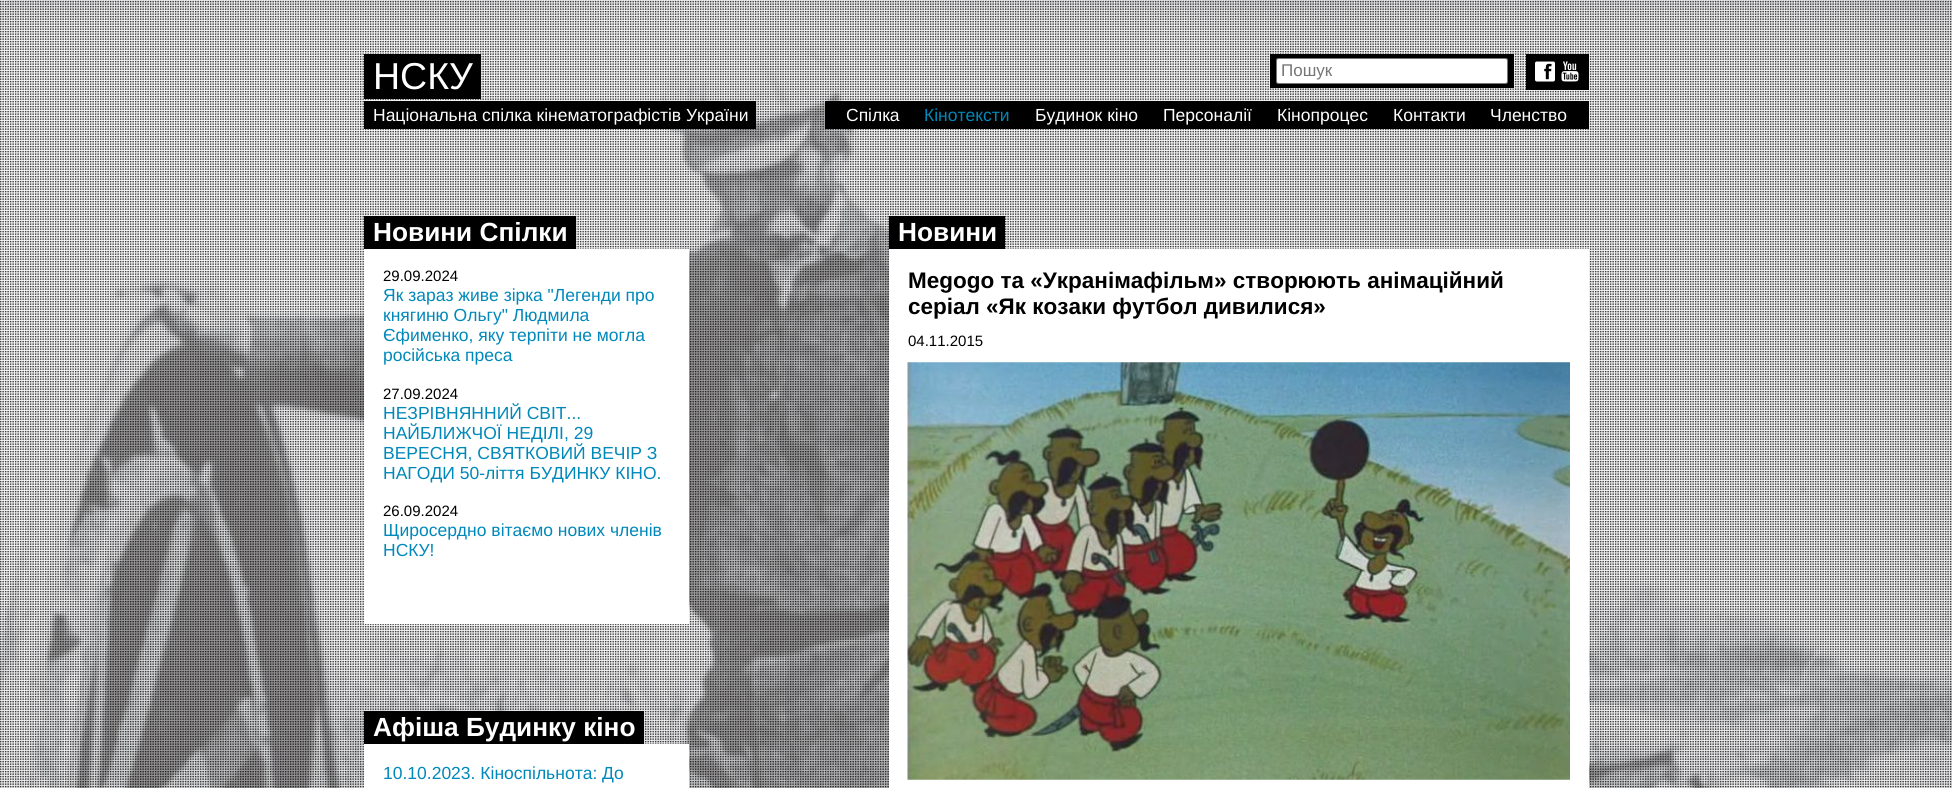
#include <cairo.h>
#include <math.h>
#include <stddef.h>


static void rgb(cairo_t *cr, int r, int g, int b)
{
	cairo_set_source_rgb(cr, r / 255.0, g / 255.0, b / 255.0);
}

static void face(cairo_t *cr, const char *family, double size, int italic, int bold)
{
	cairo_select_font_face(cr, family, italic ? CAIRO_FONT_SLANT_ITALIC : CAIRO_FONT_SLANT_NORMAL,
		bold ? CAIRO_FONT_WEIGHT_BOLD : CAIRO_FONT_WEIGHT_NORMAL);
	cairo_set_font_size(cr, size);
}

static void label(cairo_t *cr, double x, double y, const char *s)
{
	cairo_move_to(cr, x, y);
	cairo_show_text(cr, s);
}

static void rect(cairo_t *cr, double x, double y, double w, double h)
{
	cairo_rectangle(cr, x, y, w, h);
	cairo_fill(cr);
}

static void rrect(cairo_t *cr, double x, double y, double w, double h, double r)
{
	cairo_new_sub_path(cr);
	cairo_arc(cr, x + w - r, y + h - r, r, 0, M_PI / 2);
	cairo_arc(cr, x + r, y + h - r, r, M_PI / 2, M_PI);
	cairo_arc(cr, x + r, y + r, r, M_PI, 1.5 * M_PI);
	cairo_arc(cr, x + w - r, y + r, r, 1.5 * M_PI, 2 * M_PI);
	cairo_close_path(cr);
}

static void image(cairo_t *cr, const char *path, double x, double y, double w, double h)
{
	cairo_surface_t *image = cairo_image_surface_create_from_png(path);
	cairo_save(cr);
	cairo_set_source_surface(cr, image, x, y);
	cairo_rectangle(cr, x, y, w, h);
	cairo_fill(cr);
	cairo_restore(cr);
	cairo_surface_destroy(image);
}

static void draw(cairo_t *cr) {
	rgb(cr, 255, 255, 255);
	cairo_paint(cr);
	image(cr, "image0.png", 0, 0, 1952, 788);
	image(cr, "image1.png", 0, 0, 1952, 788);
	rgb(cr, 0, 0, 0);
	rect(cr, 364, 54, 117, 45);
	face(cr, "Liberation Sans", 37.5, 0, 0);
	rgb(cr, 255, 255, 255);
	label(cr, 373, 89, "НСКУ");
	rgb(cr, 0, 0, 0);
	rect(cr, 1270, 54, 244, 34);
	rgb(cr, 255, 255, 255);
	rrect(cr, 1276.5, 58.5, 231, 25, 2);
	cairo_fill_preserve(cr);
	rgb(cr, 118, 118, 118);
	cairo_set_line_width(cr, 1);
	cairo_stroke(cr);
	face(cr, "Liberation Sans", 17, 0, 0);
	rgb(cr, 117, 117, 117);
	label(cr, 1281, 76, "Пошук");
	rgb(cr, 0, 0, 0);
	rect(cr, 1526, 54, 63, 36);
	image(cr, "image2.png", 1535, 61, 20, 21);
	image(cr, "image3.png", 1561, 61, 18, 21);
	rect(cr, 364, 101, 392, 28);
	face(cr, "Liberation Sans", 17.5, 0, 0);
	rgb(cr, 255, 255, 255);
	label(cr, 373, 121, "Національна спілка кінематографістів України");
	rgb(cr, 0, 0, 0);
	rect(cr, 825, 101, 764, 28);
	rgb(cr, 255, 255, 255);
	label(cr, 846, 121, "Спілка");
	rgb(cr, 0, 136, 186);
	label(cr, 924, 121, "Кінотексти");
	rgb(cr, 255, 255, 255);
	label(cr, 1035, 121, "Будинок кіно");
	label(cr, 1163, 121, "Персоналії");
	label(cr, 1277, 121, "Кінопроцес");
	label(cr, 1393, 121, "Контакти");
	label(cr, 1490, 121, "Членство");
	rgb(cr, 0, 0, 0);
	rect(cr, 364, 216, 212, 33);
	face(cr, "Liberation Sans", 26.25, 0, 1);
	rgb(cr, 255, 255, 255);
	label(cr, 373, 241, "Новини Спілки");
	rect(cr, 364, 249, 325, 375);
	face(cr, "Liberation Sans", 15, 0, 0);
	rgb(cr, 0, 0, 0);
	label(cr, 383, 281, "29.09.2024");
	face(cr, "Liberation Sans", 17.5, 0, 0);
	rgb(cr, 0, 136, 186);
	label(cr, 383, 301, "Як зараз живе зірка \"Легенди про");
	label(cr, 383, 321, "княгиню Ольгу\" Людмила");
	label(cr, 383, 341, "Єфименко, яку терпіти не могла");
	label(cr, 383, 361, "російська преса");
	face(cr, "Liberation Sans", 15, 0, 0);
	rgb(cr, 0, 0, 0);
	label(cr, 383, 399, "27.09.2024");
	face(cr, "Liberation Sans", 17.5, 0, 0);
	rgb(cr, 0, 136, 186);
	label(cr, 383, 419, "НЕЗРІВНЯННИЙ СВІТ...");
	label(cr, 383, 439, "НАЙБЛИЖЧОЇ НЕДІЛІ, 29");
	label(cr, 383, 459, "ВЕРЕСНЯ, СВЯТКОВИЙ ВЕЧІР З");
	label(cr, 383, 479, "НАГОДИ 50-ліття БУДИНКУ КІНО.");
	face(cr, "Liberation Sans", 15, 0, 0);
	rgb(cr, 0, 0, 0);
	label(cr, 383, 516, "26.09.2024");
	face(cr, "Liberation Sans", 17.5, 0, 0);
	rgb(cr, 0, 136, 186);
	label(cr, 383, 536, "Щиросердно вітаємо нових членів");
	label(cr, 383, 556, "НСКУ!");
	rgb(cr, 0, 0, 0);
	rect(cr, 889, 216, 116, 33);
	face(cr, "Liberation Sans", 26.25, 0, 1);
	rgb(cr, 255, 255, 255);
	label(cr, 898, 241, "Новини");
	rect(cr, 889, 249, 700, 539);
	face(cr, "Liberation Sans", 22.5, 0, 1);
	rgb(cr, 0, 0, 0);
	label(cr, 908, 288, "Megogo та «Укранімафільм» створюють анімаційний");
	label(cr, 908, 314, "серіал «Як козаки футбол дивилися»");
	face(cr, "Liberation Sans", 15, 0, 0);
	label(cr, 908, 346, "04.11.2015");
	image(cr, "image4.png", 907, 362, 663, 418);
	rect(cr, 364, 711, 280, 33);
	face(cr, "Liberation Sans", 26.25, 0, 1);
	rgb(cr, 255, 255, 255);
	label(cr, 373, 736, "Афіша Будинку кіно");
	rect(cr, 364, 744, 325, 44);
	face(cr, "Liberation Sans", 17.5, 0, 0);
	rgb(cr, 0, 136, 186);
	label(cr, 383, 779, "10.10.2023. Кіноспільнота: До");
}

int main(void) {
	cairo_surface_t *surface = cairo_image_surface_create(CAIRO_FORMAT_RGB24, 1952, 788);
	cairo_t *cr = cairo_create(surface);
	cairo_font_options_t *options = cairo_font_options_create();
	cairo_font_options_set_hint_metrics(options, CAIRO_HINT_METRICS_OFF);
	cairo_font_options_set_hint_style(options, CAIRO_HINT_STYLE_NONE);
	cairo_set_font_options(cr, options);
	cairo_set_miter_limit(cr, 4);
	draw(cr);
	cairo_surface_write_to_png(surface, "render.png");
	cairo_font_options_destroy(options);
	cairo_destroy(cr);
	cairo_surface_destroy(surface);
	return 0;
}
